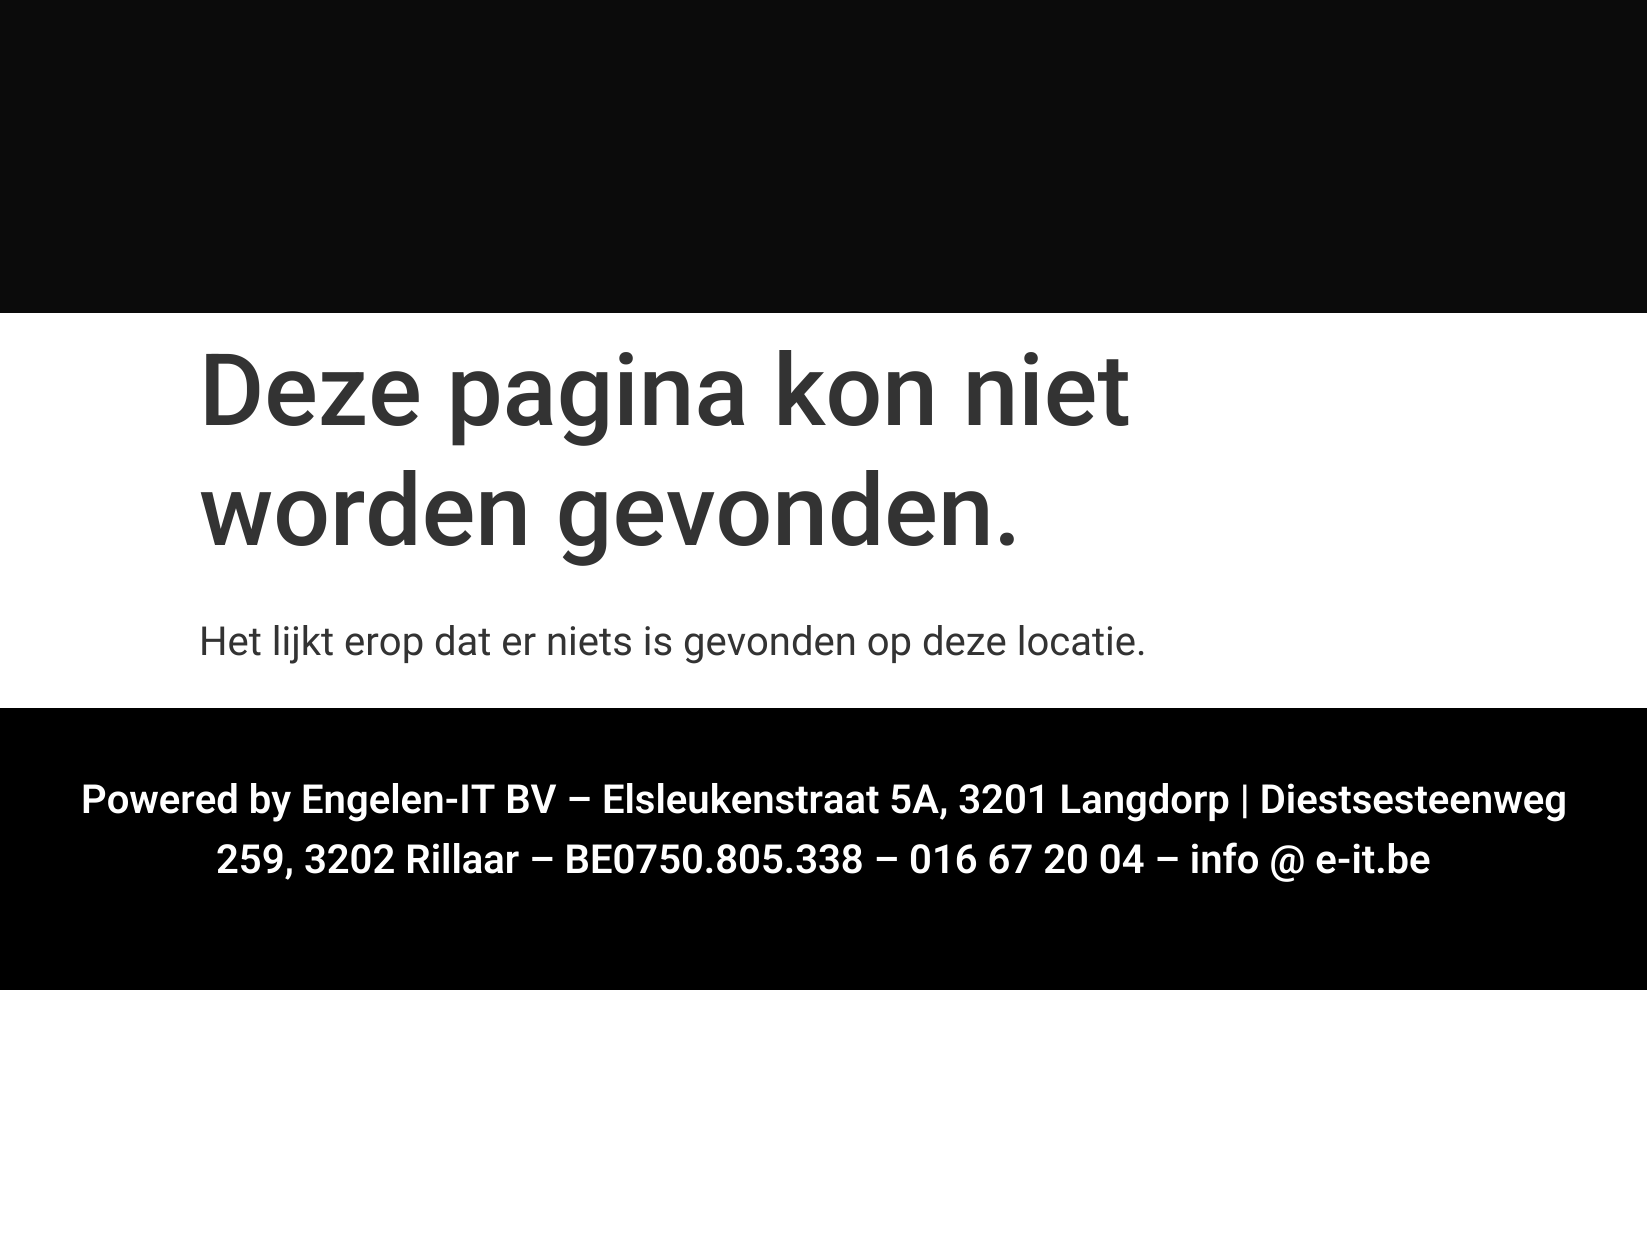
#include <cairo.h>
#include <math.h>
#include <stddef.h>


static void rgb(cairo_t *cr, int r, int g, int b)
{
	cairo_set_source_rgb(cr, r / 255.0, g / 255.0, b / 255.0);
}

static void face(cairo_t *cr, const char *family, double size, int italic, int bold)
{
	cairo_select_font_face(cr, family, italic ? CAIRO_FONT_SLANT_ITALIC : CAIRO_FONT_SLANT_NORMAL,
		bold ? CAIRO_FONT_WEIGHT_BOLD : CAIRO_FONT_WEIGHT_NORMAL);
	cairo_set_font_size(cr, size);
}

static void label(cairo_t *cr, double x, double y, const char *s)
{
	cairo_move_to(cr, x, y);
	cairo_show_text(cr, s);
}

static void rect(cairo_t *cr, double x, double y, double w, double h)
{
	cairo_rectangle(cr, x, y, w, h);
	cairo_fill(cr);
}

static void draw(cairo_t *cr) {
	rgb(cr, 255, 255, 255);
	cairo_paint(cr);
	rgb(cr, 11, 11, 11);
	rect(cr, 0, 0, 1647, 313);
	face(cr, "Roboto Medium", 100, 0, 0);
	rgb(cr, 51, 51, 51);
	label(cr, 199, 425, "Deze pagina kon niet");
	label(cr, 199, 545, "worden gevonden.");
	face(cr, "Roboto", 40, 0, 0);
	label(cr, 199, 655, "Het lijkt erop dat er niets is gevonden op deze locatie.");
	rgb(cr, 0, 0, 0);
	rect(cr, 0, 708, 1647, 282);
	face(cr, "Roboto SemiBold", 40, 0, 0);
	rgb(cr, 255, 255, 255);
	label(cr, 81, 813, "Powered by Engelen-IT BV – Elsleukenstraat 5A, 3201 Langdorp | Diestsesteenweg");
	label(cr, 216, 873, "259, 3202 Rillaar – BE0750.805.338 – 016 67 20 04 – info @ e-it.be");
}

int main(void) {
	cairo_surface_t *surface = cairo_image_surface_create(CAIRO_FORMAT_RGB24, 1647, 1248);
	cairo_t *cr = cairo_create(surface);
	cairo_font_options_t *options = cairo_font_options_create();
	cairo_font_options_set_hint_metrics(options, CAIRO_HINT_METRICS_OFF);
	cairo_font_options_set_hint_style(options, CAIRO_HINT_STYLE_NONE);
	cairo_set_font_options(cr, options);
	cairo_set_miter_limit(cr, 4);
	draw(cr);
	cairo_surface_write_to_png(surface, "render.png");
	cairo_font_options_destroy(options);
	cairo_destroy(cr);
	cairo_surface_destroy(surface);
	return 0;
}
